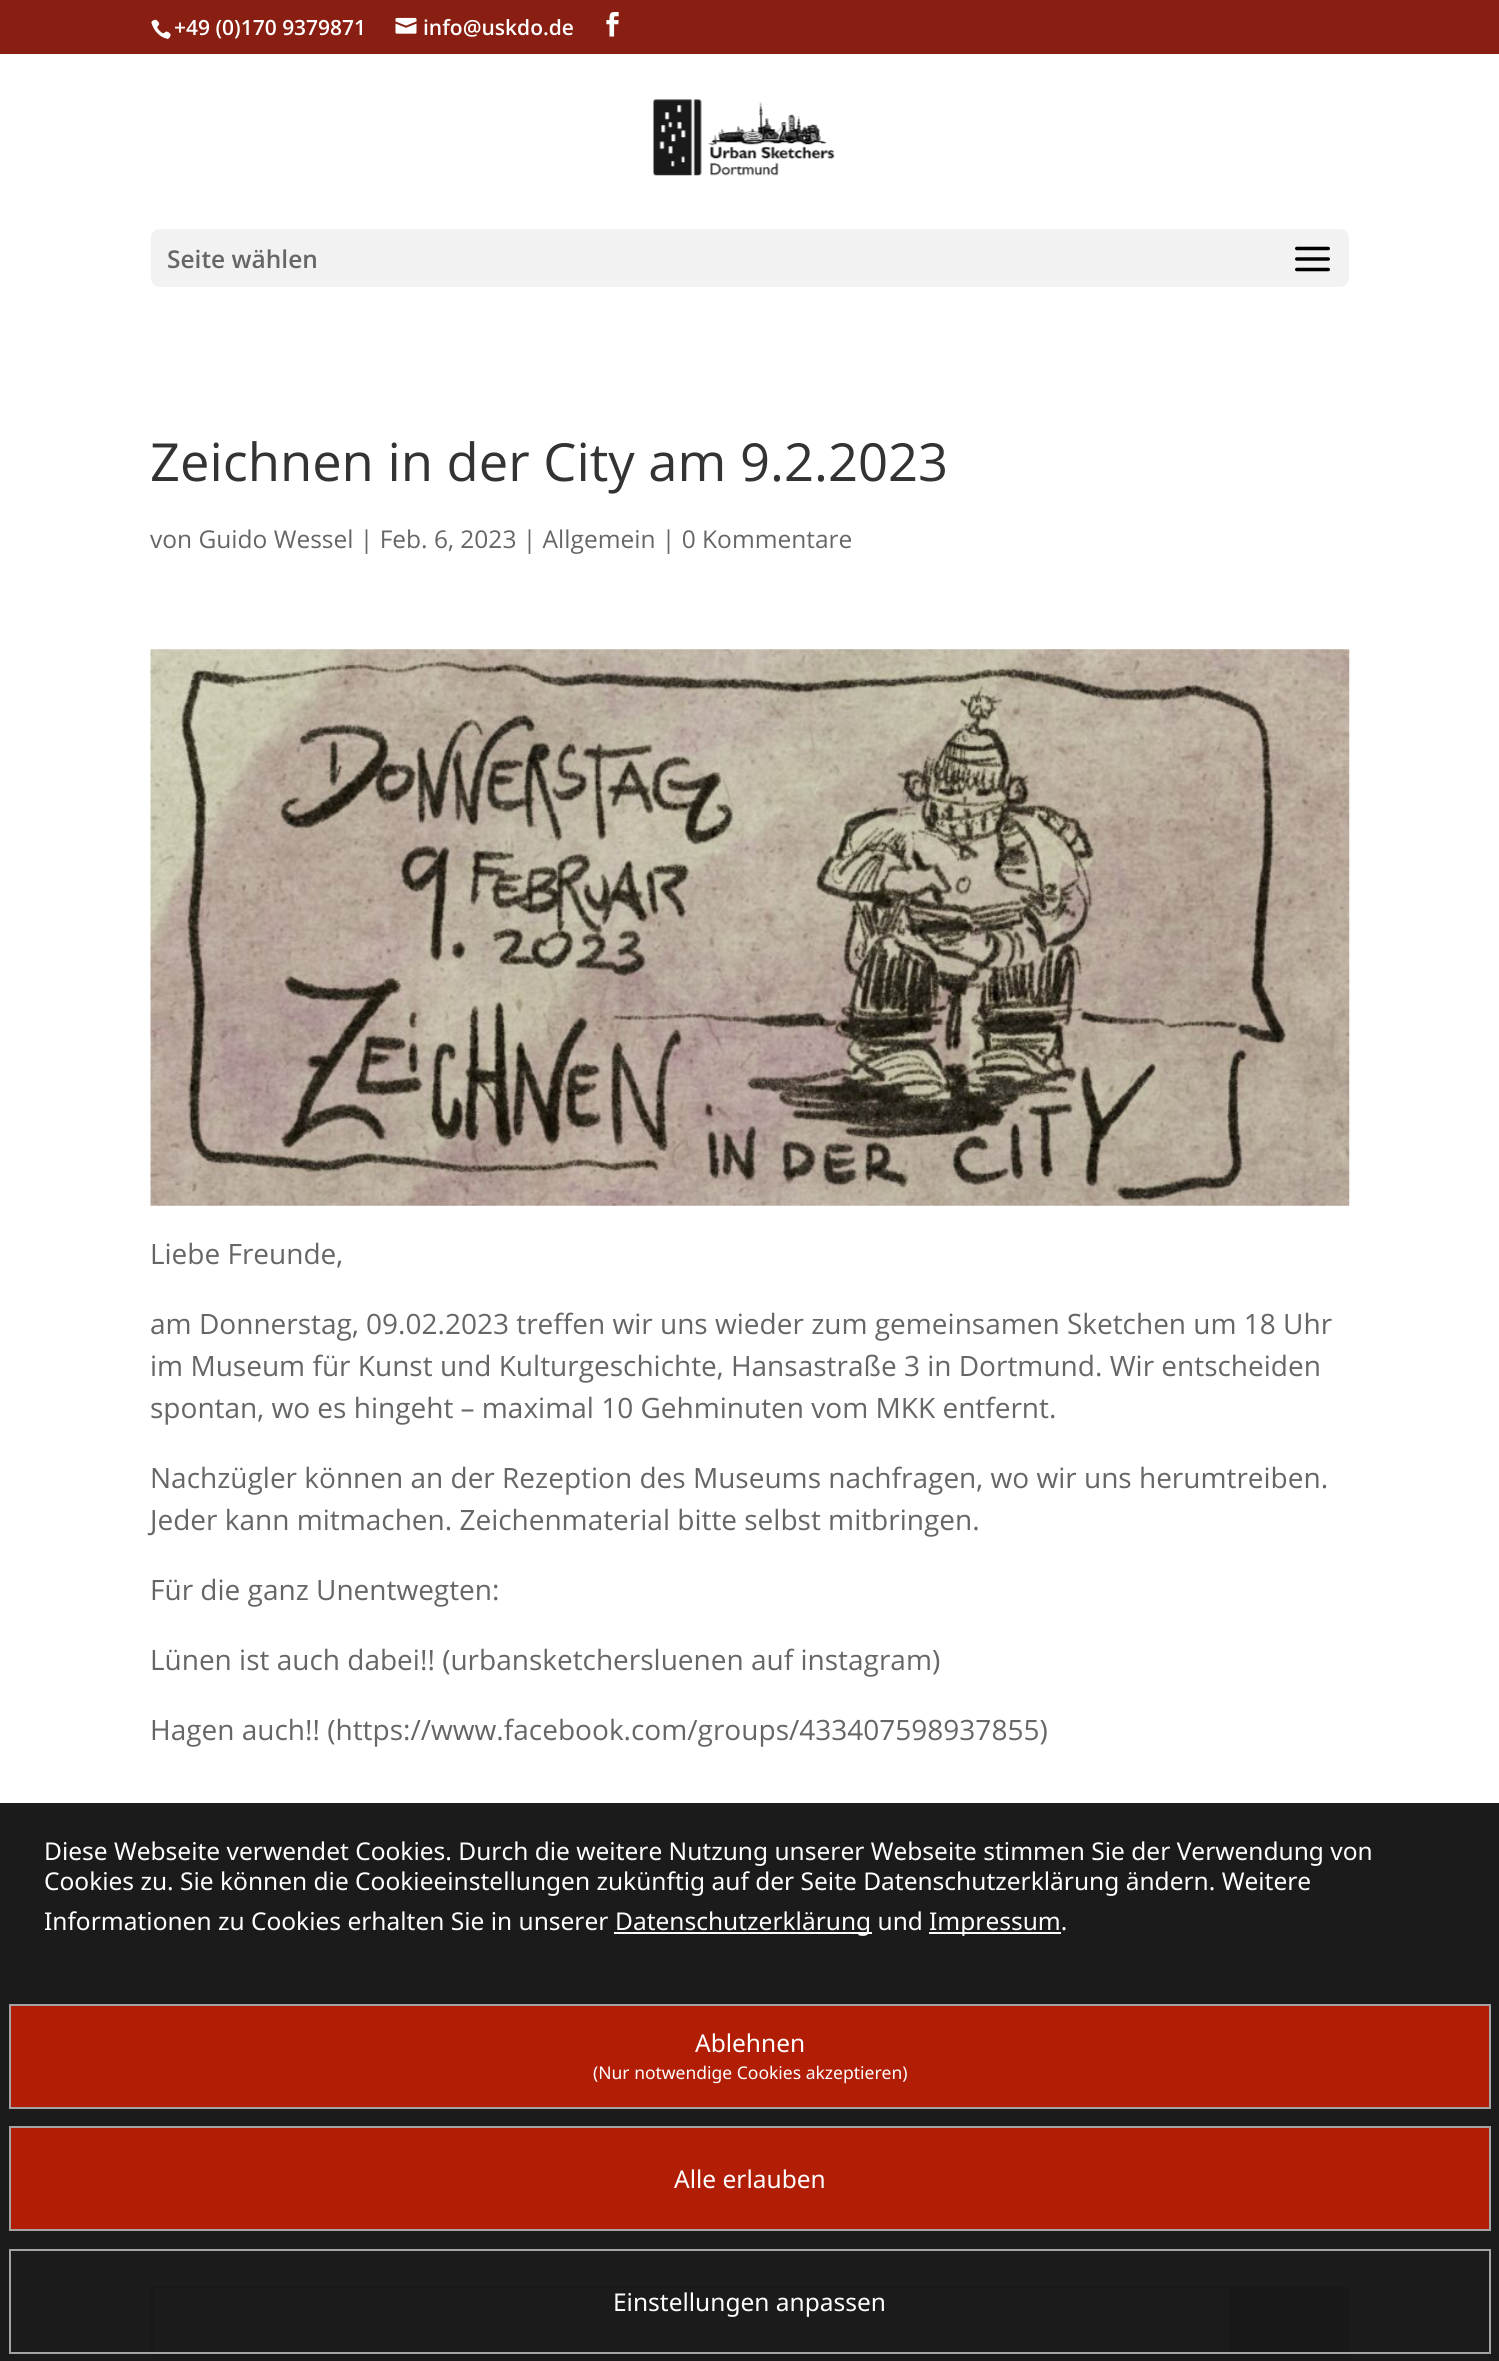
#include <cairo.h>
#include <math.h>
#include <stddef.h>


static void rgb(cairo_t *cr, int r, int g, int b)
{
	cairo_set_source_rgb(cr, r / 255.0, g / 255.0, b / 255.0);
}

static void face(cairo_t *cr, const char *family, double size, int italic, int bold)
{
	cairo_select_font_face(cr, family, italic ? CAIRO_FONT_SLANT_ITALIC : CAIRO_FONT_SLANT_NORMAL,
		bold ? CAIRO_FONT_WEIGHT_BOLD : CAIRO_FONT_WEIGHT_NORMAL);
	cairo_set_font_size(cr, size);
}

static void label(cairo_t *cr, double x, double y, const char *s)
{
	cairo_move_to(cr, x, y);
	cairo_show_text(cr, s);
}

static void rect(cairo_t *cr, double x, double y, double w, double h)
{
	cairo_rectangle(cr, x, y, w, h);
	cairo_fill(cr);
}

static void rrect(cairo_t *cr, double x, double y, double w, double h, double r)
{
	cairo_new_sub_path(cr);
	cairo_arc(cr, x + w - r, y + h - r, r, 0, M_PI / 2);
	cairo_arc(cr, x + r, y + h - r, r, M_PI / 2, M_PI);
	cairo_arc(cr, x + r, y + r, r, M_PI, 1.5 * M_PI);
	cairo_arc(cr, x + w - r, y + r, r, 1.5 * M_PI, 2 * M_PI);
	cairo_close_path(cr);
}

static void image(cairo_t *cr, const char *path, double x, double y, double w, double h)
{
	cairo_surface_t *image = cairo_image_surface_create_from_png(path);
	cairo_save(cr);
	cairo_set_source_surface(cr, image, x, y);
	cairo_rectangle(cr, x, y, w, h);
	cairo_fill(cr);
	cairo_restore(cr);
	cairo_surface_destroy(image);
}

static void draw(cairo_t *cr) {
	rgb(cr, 255, 255, 255);
	cairo_paint(cr);
	rgb(cr, 137, 31, 19);
	rect(cr, 0, 0, 1499, 54);
	image(cr, "image0.png", 151, 19, 20, 20);
	face(cr, "Open Sans SemiBold", 21, 0, 0);
	rgb(cr, 255, 255, 255);
	label(cr, 174, 35, "+49 (0)170 9379871");
	image(cr, "image1.png", 395, 17, 22, 17);
	label(cr, 423, 35, "info@uskdo.de");
	image(cr, "image2.png", 606, 12, 13, 25);
	image(cr, "image3.png", 653, 99, 182, 77);
	rgb(cr, 242, 242, 242);
	rrect(cr, 151, 229, 1198, 58, 9);
	cairo_fill(cr);
	face(cr, "Open Sans SemiBold", 24.5, 0, 0);
	rgb(cr, 102, 102, 102);
	label(cr, 167, 268, "Seite wählen");
	image(cr, "image4.png", 1295, 246, 35, 26);
	face(cr, "Open Sans", 52.5, 0, 0);
	rgb(cr, 51, 51, 51);
	label(cr, 150, 481, "Zeichnen in der City am 9.2.2023");
	face(cr, "Open Sans", 24.5, 0, 0);
	rgb(cr, 102, 102, 102);
	label(cr, 150, 548, "von Guido Wessel | Feb. 6, 2023 | Allgemein | 0 Kommentare");
	image(cr, "image5.png", 150, 649, 1200, 557);
	face(cr, "Open Sans", 28, 0, 0);
	label(cr, 150, 1264, "Liebe Freunde,");
	label(cr, 150, 1334, "am Donnerstag, 09.02.2023 treffen wir uns wieder zum gemeinsamen Sketchen um 18 Uhr");
	label(cr, 150, 1376, "im Museum für Kunst und Kulturgeschichte, Hansastraße 3 in Dortmund. Wir entscheiden");
	label(cr, 150, 1418, "spontan, wo es hingeht – maximal 10 Gehminuten vom MKK entfernt.");
	label(cr, 150, 1488, "Nachzügler können an der Rezeption des Museums nachfragen, wo wir uns herumtreiben.");
	label(cr, 150, 1530, "Jeder kann mitmachen. Zeichenmaterial bitte selbst mitbringen.");
	label(cr, 150, 1600, "Für die ganz Unentwegten:");
	label(cr, 150, 1670, "Lünen ist auch dabei!! (urbansketchersluenen auf instagram)");
	label(cr, 150, 1740, "Hagen auch!! (https://www.facebook.com/groups/433407598937855)");
	rrect(cr, 152, 2287, 1196, 68, 4);
	rgb(cr, 221, 221, 221);
	cairo_stroke(cr);
	cairo_new_path(cr);
	cairo_move_to(cr, 1230, 2287);
	cairo_line_to(cr, 1344, 2287);
	cairo_curve_to(cr, 1346, 2287, 1348, 2289, 1348, 2291);
	cairo_line_to(cr, 1348, 2351);
	cairo_curve_to(cr, 1348, 2353, 1346, 2355, 1344, 2355);
	cairo_line_to(cr, 1230, 2355);
	cairo_close_path(cr);
	cairo_fill_preserve(cr);
	cairo_stroke(cr);
	cairo_set_source_rgba(cr, 0.012, 0.012, 0.012, 0.9);
	rect(cr, 0, 1803, 1499, 558);
	face(cr, "Noto Sans", 24.5, 0, 0);
	rgb(cr, 255, 255, 255);
	label(cr, 44, 1860, "Diese Webseite verwendet Cookies. Durch die weitere Nutzung unserer Webseite stimmen Sie der Verwendung von");
	label(cr, 44, 1890, "Cookies zu. Sie können die Cookieeinstellungen zukünftig auf der Seite Datenschutzerklärung ändern. Weitere");
	label(cr, 44, 1930, "Informationen zu Cookies erhalten Sie in unserer");
	rect(cr, 614, 1932, 258, 2);
	label(cr, 615, 1930, "Datenschutzerklärung und");
	rect(cr, 929, 1932, 132, 2);
	label(cr, 929, 1930, "Impressum.");
	rgb(cr, 178, 29, 5);
	cairo_rectangle(cr, 10, 2005, 1480, 103);
	cairo_fill_preserve(cr);
	rgb(cr, 164, 164, 164);
	cairo_stroke(cr);
	rgb(cr, 255, 255, 255);
	label(cr, 695, 2052, "Ablehnen");
	face(cr, "Noto Sans", 17.5, 0, 0);
	label(cr, 593, 2079, "(Nur notwendige Cookies akzeptieren)");
	rgb(cr, 178, 29, 5);
	cairo_rectangle(cr, 10, 2127, 1480, 103);
	cairo_fill_preserve(cr);
	rgb(cr, 164, 164, 164);
	cairo_stroke(cr);
	face(cr, "Noto Sans", 24.5, 0, 0);
	rgb(cr, 255, 255, 255);
	label(cr, 674, 2188, "Alle erlauben");
	cairo_rectangle(cr, 10, 2250, 1480, 103);
	rgb(cr, 164, 164, 164);
	cairo_stroke(cr);
	rgb(cr, 255, 255, 255);
	label(cr, 613, 2311, "Einstellungen anpassen");
}

int main(void) {
	cairo_surface_t *surface = cairo_image_surface_create(CAIRO_FORMAT_RGB24, 1499, 2361);
	cairo_t *cr = cairo_create(surface);
	cairo_font_options_t *options = cairo_font_options_create();
	cairo_font_options_set_hint_metrics(options, CAIRO_HINT_METRICS_OFF);
	cairo_font_options_set_hint_style(options, CAIRO_HINT_STYLE_NONE);
	cairo_set_font_options(cr, options);
	cairo_set_miter_limit(cr, 4);
	draw(cr);
	cairo_surface_write_to_png(surface, "render.png");
	cairo_font_options_destroy(options);
	cairo_destroy(cr);
	cairo_surface_destroy(surface);
	return 0;
}
